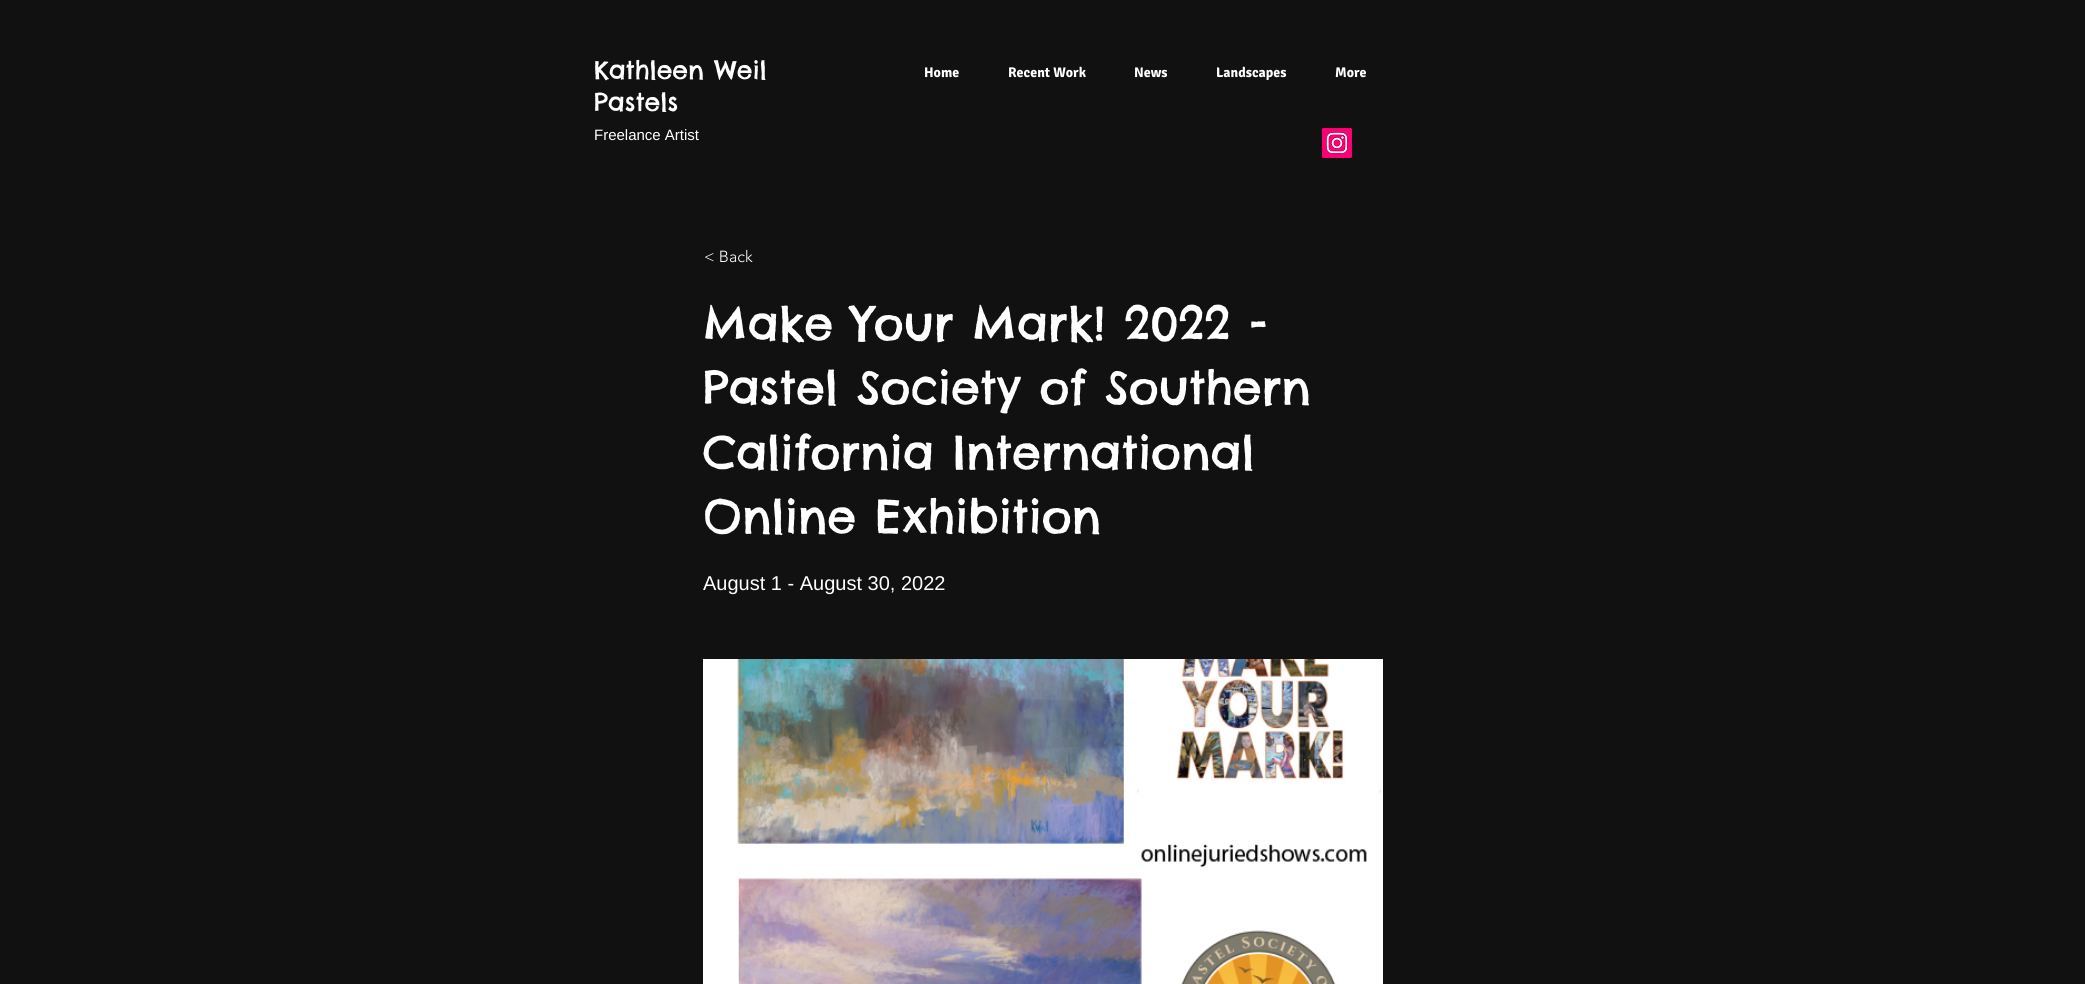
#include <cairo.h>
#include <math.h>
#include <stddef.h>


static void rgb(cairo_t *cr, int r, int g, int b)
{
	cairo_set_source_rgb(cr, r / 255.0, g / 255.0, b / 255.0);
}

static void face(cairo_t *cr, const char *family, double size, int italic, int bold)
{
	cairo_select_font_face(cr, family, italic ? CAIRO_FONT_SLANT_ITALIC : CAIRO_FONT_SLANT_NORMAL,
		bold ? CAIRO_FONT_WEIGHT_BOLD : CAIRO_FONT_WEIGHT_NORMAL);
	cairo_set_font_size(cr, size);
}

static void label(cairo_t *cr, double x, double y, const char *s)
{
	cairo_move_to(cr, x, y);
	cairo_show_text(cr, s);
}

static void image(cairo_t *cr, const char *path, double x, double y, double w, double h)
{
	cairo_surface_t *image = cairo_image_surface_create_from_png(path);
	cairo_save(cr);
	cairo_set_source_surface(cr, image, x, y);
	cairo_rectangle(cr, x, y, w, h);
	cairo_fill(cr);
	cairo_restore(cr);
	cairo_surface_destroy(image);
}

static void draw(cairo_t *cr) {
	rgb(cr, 17, 17, 17);
	cairo_paint(cr);
	face(cr, "Chelsea Market", 25, 0, 0);
	rgb(cr, 255, 255, 255);
	label(cr, 594, 79, "Kathleen Weil");
	label(cr, 594, 111, "Pastels");
	face(cr, "Signika", 14, 0, 1);
	label(cr, 924, 77, "Home");
	label(cr, 1008, 77, "Recent Work");
	label(cr, 1134, 77, "News");
	label(cr, 1216, 77, "Landscapes");
	label(cr, 1335, 77, "More");
	face(cr, "Liberation Sans", 15, 0, 0);
	label(cr, 594, 140, "Freelance Artist");
	image(cr, "image0.png", 1322, 128, 30, 30);
	face(cr, "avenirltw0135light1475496 Light", 16, 0, 0);
	label(cr, 704, 262, "< Back");
	face(cr, "Chelsea Market", 46, 0, 0);
	label(cr, 703, 340, "Make Your Mark! 2022 -");
	label(cr, 703, 404, "Pastel Society of Southern");
	label(cr, 703, 469, "California International");
	label(cr, 703, 533, "Online Exhibition");
	face(cr, "Liberation Sans", 20, 0, 0);
	label(cr, 703, 590, "August 1 - August 30, 2022");
	image(cr, "image1.png", 703, 659, 680, 325);
}

int main(void) {
	cairo_surface_t *surface = cairo_image_surface_create(CAIRO_FORMAT_RGB24, 2085, 984);
	cairo_t *cr = cairo_create(surface);
	cairo_font_options_t *options = cairo_font_options_create();
	cairo_font_options_set_hint_metrics(options, CAIRO_HINT_METRICS_OFF);
	cairo_font_options_set_hint_style(options, CAIRO_HINT_STYLE_NONE);
	cairo_set_font_options(cr, options);
	cairo_set_miter_limit(cr, 4);
	draw(cr);
	cairo_surface_write_to_png(surface, "render.png");
	cairo_font_options_destroy(options);
	cairo_destroy(cr);
	cairo_surface_destroy(surface);
	return 0;
}
